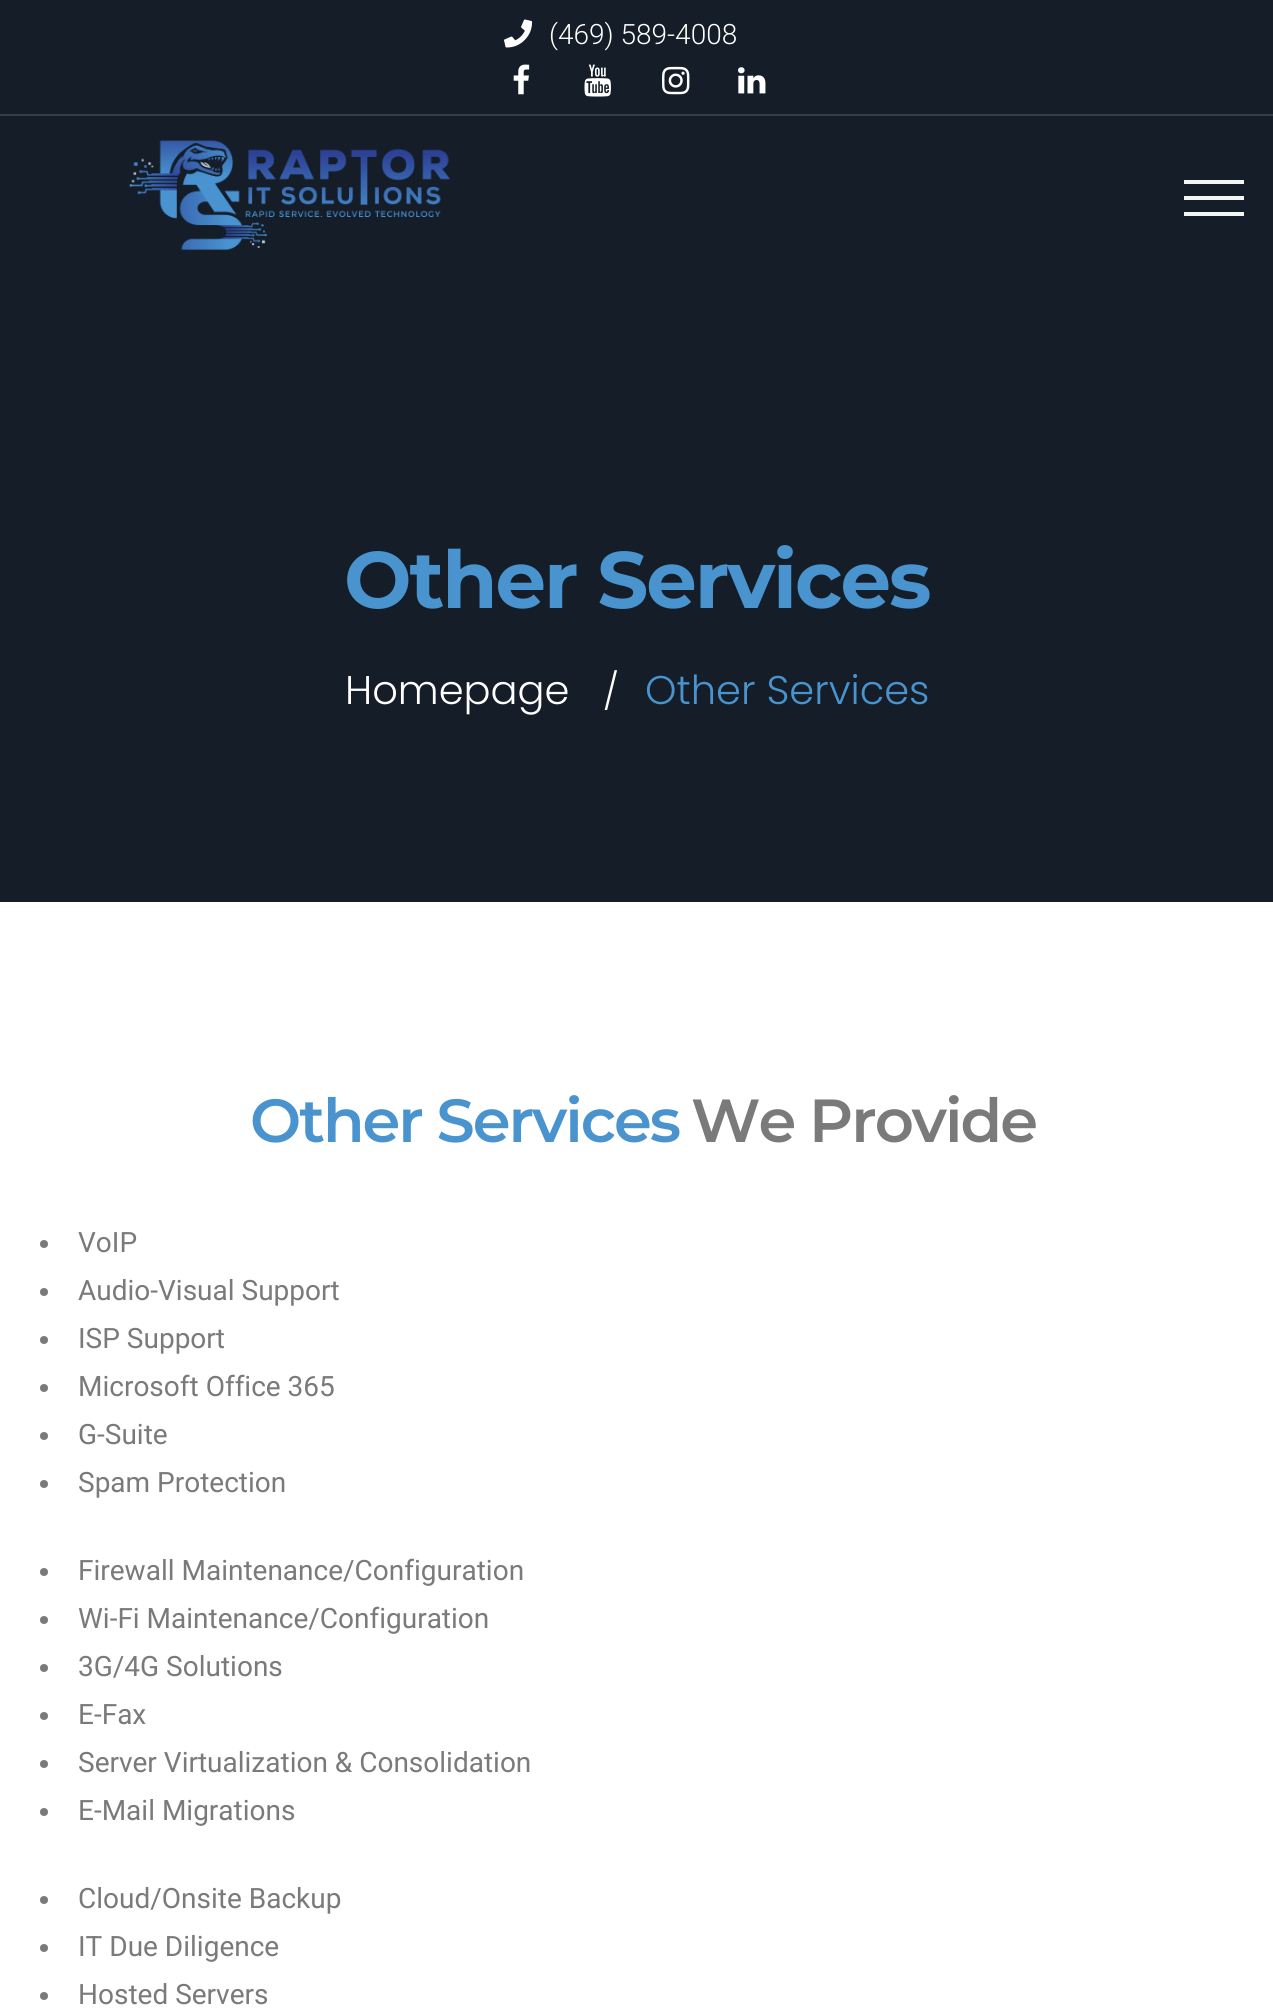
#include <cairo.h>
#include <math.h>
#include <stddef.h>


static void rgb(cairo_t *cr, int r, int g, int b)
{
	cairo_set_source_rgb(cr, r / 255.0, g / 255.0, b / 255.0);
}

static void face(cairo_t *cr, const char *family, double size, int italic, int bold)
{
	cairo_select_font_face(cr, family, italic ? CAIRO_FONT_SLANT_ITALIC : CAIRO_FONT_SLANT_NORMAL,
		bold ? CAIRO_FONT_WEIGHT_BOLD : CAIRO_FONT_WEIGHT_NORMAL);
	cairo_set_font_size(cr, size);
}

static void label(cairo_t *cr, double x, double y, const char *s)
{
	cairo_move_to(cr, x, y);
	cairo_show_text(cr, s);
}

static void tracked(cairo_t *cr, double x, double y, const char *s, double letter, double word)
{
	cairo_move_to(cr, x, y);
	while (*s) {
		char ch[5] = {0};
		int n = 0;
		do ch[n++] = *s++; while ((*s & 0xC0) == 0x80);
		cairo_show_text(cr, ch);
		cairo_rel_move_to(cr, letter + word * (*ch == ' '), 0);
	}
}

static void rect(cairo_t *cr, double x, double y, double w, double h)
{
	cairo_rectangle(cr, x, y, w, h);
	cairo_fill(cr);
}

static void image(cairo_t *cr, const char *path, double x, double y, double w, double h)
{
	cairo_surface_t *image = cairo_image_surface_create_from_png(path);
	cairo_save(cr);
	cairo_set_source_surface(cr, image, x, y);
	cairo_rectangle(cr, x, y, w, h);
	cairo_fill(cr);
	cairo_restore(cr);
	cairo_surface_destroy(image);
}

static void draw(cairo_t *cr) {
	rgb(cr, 255, 255, 255);
	cairo_paint(cr);
	rgb(cr, 20, 29, 40);
	rect(cr, 0, 0, 1273, 902);
	image(cr, "image0.png", 504, 19, 29, 29);
	face(cr, "Roboto Light", 28, 0, 0);
	rgb(cr, 255, 255, 255);
	label(cr, 549, 44, "(469) 589-4008");
	image(cr, "image1.png", 513, 64, 17, 31);
	image(cr, "image2.png", 584, 64, 27, 33);
	image(cr, "image3.png", 662, 66, 28, 29);
	image(cr, "image4.png", 738, 67, 28, 27);
	rgb(cr, 52, 61, 72);
	rect(cr, 0, 114, 1273, 2);
	image(cr, "image5.png", 129, 140, 321, 110);
	rgb(cr, 243, 244, 244);
	rect(cr, 1184, 180, 60, 4);
	rect(cr, 1184, 212, 60, 4);
	rect(cr, 1184, 196, 60, 4);
	face(cr, "Montserrat", 80, 0, 1);
	rgb(cr, 73, 147, 207);
	tracked(cr, 344, 608, "Other Services", -2, 0);
	face(cr, "Poppins Light", 40, 0, 0);
	rgb(cr, 255, 255, 255);
	label(cr, 345, 704, "Homepage");
	face(cr, "Poppins Light", 36, 0, 0);
	label(cr, 603, 704, "/");
	face(cr, "Poppins Light", 40, 0, 0);
	rgb(cr, 73, 147, 207);
	label(cr, 645, 704, "Other Services");
	face(cr, "Montserrat SemiBold", 60.75, 0, 0);
	tracked(cr, 250, 1142, "Other Services", -2, 0);
	rgb(cr, 122, 122, 122);
	tracked(cr, 691, 1142, "We Provide", -2, 0);
	cairo_new_path(cr);
	cairo_arc(cr, 44, 1244, 4, 0, 2 * M_PI);
	cairo_fill(cr);
	face(cr, "Roboto", 28, 0, 0);
	label(cr, 78, 1252, "VoIP");
	cairo_new_path(cr);
	cairo_arc(cr, 44, 1292, 4, 0, 2 * M_PI);
	cairo_fill(cr);
	label(cr, 78, 1300, "Audio-Visual Support");
	cairo_new_path(cr);
	cairo_arc(cr, 44, 1340, 4, 0, 2 * M_PI);
	cairo_fill(cr);
	label(cr, 78, 1348, "ISP Support");
	cairo_new_path(cr);
	cairo_arc(cr, 44, 1388, 4, 0, 2 * M_PI);
	cairo_fill(cr);
	label(cr, 78, 1396, "Microsoft Office 365");
	cairo_new_path(cr);
	cairo_arc(cr, 44, 1436, 4, 0, 2 * M_PI);
	cairo_fill(cr);
	label(cr, 78, 1444, "G-Suite");
	cairo_new_path(cr);
	cairo_arc(cr, 44, 1484, 4, 0, 2 * M_PI);
	cairo_fill(cr);
	label(cr, 78, 1492, "Spam Protection");
	cairo_new_path(cr);
	cairo_arc(cr, 44, 1572, 4, 0, 2 * M_PI);
	cairo_fill(cr);
	label(cr, 78, 1580, "Firewall Maintenance/Configuration");
	cairo_new_path(cr);
	cairo_arc(cr, 44, 1620, 4, 0, 2 * M_PI);
	cairo_fill(cr);
	label(cr, 78, 1628, "Wi-Fi Maintenance/Configuration");
	cairo_new_path(cr);
	cairo_arc(cr, 44, 1668, 4, 0, 2 * M_PI);
	cairo_fill(cr);
	label(cr, 78, 1676, "3G/4G Solutions");
	cairo_new_path(cr);
	cairo_arc(cr, 44, 1716, 4, 0, 2 * M_PI);
	cairo_fill(cr);
	label(cr, 78, 1724, "E-Fax");
	cairo_new_path(cr);
	cairo_arc(cr, 44, 1764, 4, 0, 2 * M_PI);
	cairo_fill(cr);
	label(cr, 78, 1772, "Server Virtualization & Consolidation");
	cairo_new_path(cr);
	cairo_arc(cr, 44, 1812, 4, 0, 2 * M_PI);
	cairo_fill(cr);
	label(cr, 78, 1820, "E-Mail Migrations");
	cairo_new_path(cr);
	cairo_arc(cr, 44, 1900, 4, 0, 2 * M_PI);
	cairo_fill(cr);
	label(cr, 78, 1908, "Cloud/Onsite Backup");
	cairo_new_path(cr);
	cairo_arc(cr, 44, 1948, 4, 0, 2 * M_PI);
	cairo_fill(cr);
	label(cr, 78, 1956, "IT Due Diligence");
	cairo_new_path(cr);
	cairo_arc(cr, 44, 1996, 4, 0, 2 * M_PI);
	cairo_fill(cr);
	label(cr, 78, 2004, "Hosted Servers");
}

int main(void) {
	cairo_surface_t *surface = cairo_image_surface_create(CAIRO_FORMAT_RGB24, 1273, 2012);
	cairo_t *cr = cairo_create(surface);
	cairo_font_options_t *options = cairo_font_options_create();
	cairo_font_options_set_hint_metrics(options, CAIRO_HINT_METRICS_OFF);
	cairo_font_options_set_hint_style(options, CAIRO_HINT_STYLE_NONE);
	cairo_set_font_options(cr, options);
	cairo_set_miter_limit(cr, 4);
	draw(cr);
	cairo_surface_write_to_png(surface, "render.png");
	cairo_font_options_destroy(options);
	cairo_destroy(cr);
	cairo_surface_destroy(surface);
	return 0;
}
